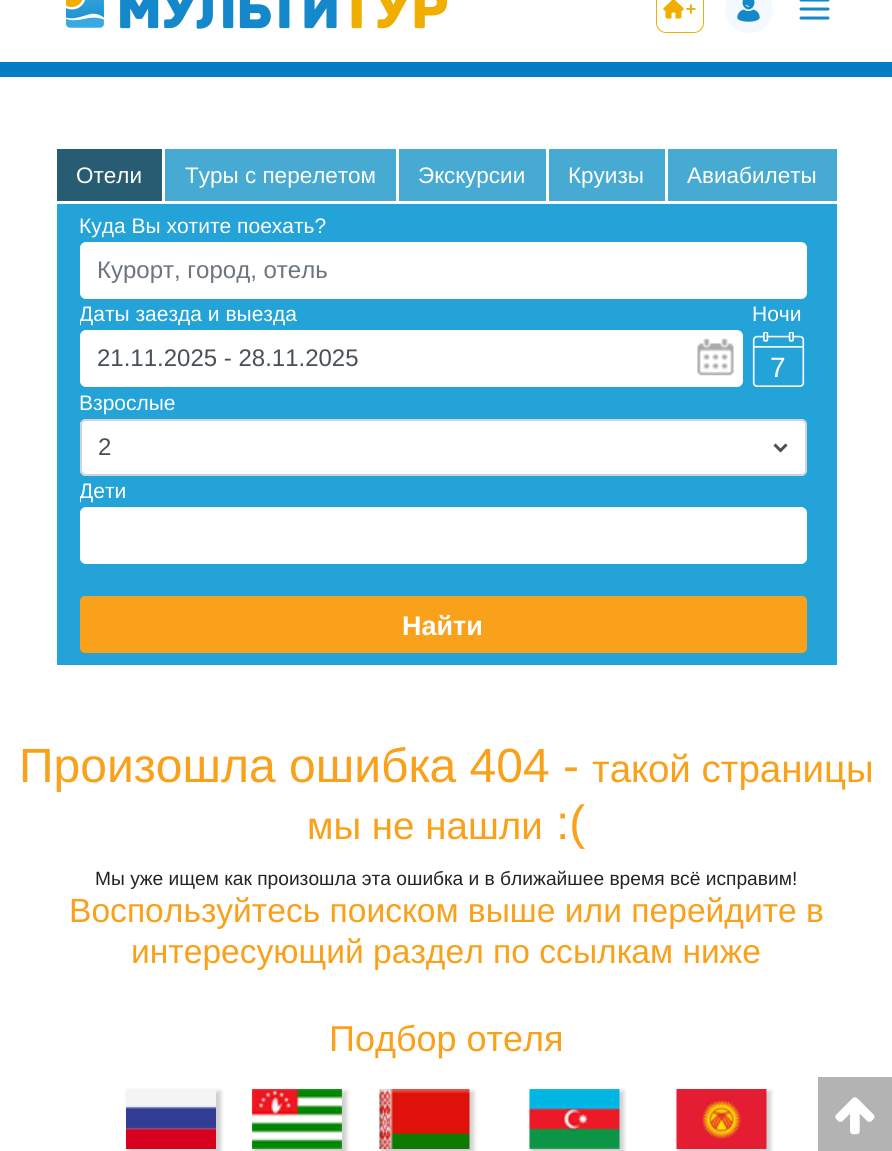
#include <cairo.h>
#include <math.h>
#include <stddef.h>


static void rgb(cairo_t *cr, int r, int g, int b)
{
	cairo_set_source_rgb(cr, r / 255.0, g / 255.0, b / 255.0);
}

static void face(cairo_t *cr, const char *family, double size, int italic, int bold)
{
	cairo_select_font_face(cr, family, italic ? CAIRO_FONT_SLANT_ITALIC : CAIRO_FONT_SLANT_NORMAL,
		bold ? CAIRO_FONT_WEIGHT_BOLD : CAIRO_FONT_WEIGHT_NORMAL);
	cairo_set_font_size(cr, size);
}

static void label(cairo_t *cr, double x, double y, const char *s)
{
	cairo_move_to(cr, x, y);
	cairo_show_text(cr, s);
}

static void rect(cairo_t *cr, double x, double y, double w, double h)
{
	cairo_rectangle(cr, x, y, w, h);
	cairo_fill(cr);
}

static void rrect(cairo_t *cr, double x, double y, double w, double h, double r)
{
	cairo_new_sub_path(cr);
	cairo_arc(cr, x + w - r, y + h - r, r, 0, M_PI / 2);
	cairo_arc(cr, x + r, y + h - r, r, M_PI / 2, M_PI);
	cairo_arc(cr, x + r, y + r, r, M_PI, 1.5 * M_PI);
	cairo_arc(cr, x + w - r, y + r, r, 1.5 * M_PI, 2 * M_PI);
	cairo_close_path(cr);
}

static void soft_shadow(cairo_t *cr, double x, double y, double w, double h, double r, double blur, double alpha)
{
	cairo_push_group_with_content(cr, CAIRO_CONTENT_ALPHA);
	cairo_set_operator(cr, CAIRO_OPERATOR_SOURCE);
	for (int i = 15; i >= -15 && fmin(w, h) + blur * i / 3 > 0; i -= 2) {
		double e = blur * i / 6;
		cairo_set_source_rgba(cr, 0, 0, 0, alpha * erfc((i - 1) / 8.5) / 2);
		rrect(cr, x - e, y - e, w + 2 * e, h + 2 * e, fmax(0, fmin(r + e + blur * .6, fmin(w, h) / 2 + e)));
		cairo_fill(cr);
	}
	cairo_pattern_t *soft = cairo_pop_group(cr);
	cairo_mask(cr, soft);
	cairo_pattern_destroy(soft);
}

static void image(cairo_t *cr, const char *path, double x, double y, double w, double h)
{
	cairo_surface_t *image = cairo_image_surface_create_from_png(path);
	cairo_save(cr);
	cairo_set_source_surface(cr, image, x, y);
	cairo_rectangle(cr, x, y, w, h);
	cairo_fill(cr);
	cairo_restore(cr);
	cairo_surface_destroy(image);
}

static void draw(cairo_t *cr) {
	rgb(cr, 255, 255, 255);
	cairo_paint(cr);
	image(cr, "image0.png", 66, 0, 381, 29);
	image(cr, "image1.png", 656, 0, 48, 33);
	rgb(cr, 243, 249, 252);
	cairo_arc(cr, 749, 9, 24, 0, 2 * M_PI);
	cairo_fill(cr);
	image(cr, "image2.png", 737, 0, 23, 22);
	image(cr, "image3.png", 799, 0, 31, 20);
	rgb(cr, 4, 125, 196);
	rect(cr, 0, 62, 892, 15);
	rgb(cr, 39, 92, 114);
	rect(cr, 57, 149, 105, 52);
	face(cr, "Liberation Sans", 22.5, 0, 0);
	rgb(cr, 255, 255, 255);
	label(cr, 76, 183, "Отели");
	rgb(cr, 71, 170, 211);
	rect(cr, 165, 149, 231, 52);
	rgb(cr, 255, 255, 255);
	label(cr, 185, 183, "Туры с перелетом");
	rgb(cr, 71, 170, 211);
	rect(cr, 399, 149, 147, 52);
	rgb(cr, 255, 255, 255);
	label(cr, 418, 183, "Экскурсии");
	rgb(cr, 71, 170, 211);
	rect(cr, 549, 149, 116, 52);
	rgb(cr, 255, 255, 255);
	label(cr, 568, 183, "Круизы");
	rgb(cr, 71, 170, 211);
	rect(cr, 668, 149, 169, 52);
	rgb(cr, 255, 255, 255);
	label(cr, 687, 183, "Авиабилеты");
	rgb(cr, 36, 163, 216);
	rect(cr, 57, 204, 780, 461);
	face(cr, "Liberation Sans", 21, 0, 0);
	rgb(cr, 255, 255, 255);
	label(cr, 79, 233, "Куда Вы хотите поехать?");
	rrect(cr, 80, 242, 727, 57, 6);
	cairo_fill(cr);
	face(cr, "Liberation Sans", 24, 0, 0);
	rgb(cr, 108, 117, 125);
	label(cr, 97, 278, "Курорт, город, отель");
	cairo_save(cr);
	cairo_rectangle(cr, 80, 299, 663, 31);
	cairo_clip(cr);
	face(cr, "Liberation Sans", 21, 0, 0);
	rgb(cr, 255, 255, 255);
	label(cr, 79, 321, "Даты заезда и выезда");
	cairo_restore(cr);
	rgb(cr, 255, 255, 255);
	rrect(cr, 80, 330, 663, 57, 6);
	cairo_fill(cr);
	image(cr, "image4.png", 697, 338, 37, 38);
	rgb(cr, 73, 80, 87);
	label(cr, 97, 366, "21.11.2025 - 28.11.2025");
	face(cr, "Liberation Sans", 21, 0, 0);
	rgb(cr, 255, 255, 255);
	label(cr, 752, 321, "Ночи");
	image(cr, "image5.png", 752, 332, 53, 55);
	face(cr, "Liberation Sans", 28, 0, 0);
	label(cr, 770, 377, "7");
	face(cr, "Liberation Sans", 21, 0, 0);
	label(cr, 79, 410, "Взрослые");
	rrect(cr, 80, 419, 727, 57, 6);
	cairo_fill(cr);
	cairo_new_path(cr);
	cairo_move_to(cr, 774.5, 444.5);
	cairo_line_to(cr, 780.5, 450.5);
	cairo_line_to(cr, 786.5, 444.5);
	rgb(cr, 73, 80, 87);
	cairo_set_line_width(cr, 3);
	cairo_stroke(cr);
	rrect(cr, 81, 420, 725, 55, 5);
	rgb(cr, 206, 212, 218);
	cairo_set_line_width(cr, 2);
	cairo_stroke(cr);
	face(cr, "Liberation Sans", 24, 0, 0);
	rgb(cr, 73, 80, 87);
	label(cr, 98, 455, "2");
	cairo_save(cr);
	cairo_rectangle(cr, 80, 476, 727, 31);
	cairo_clip(cr);
	face(cr, "Liberation Sans", 21, 0, 0);
	rgb(cr, 255, 255, 255);
	label(cr, 79, 498, "Дети");
	cairo_restore(cr);
	rgb(cr, 255, 255, 255);
	rrect(cr, 80, 507, 727, 57, 6);
	cairo_fill(cr);
	rgb(cr, 249, 161, 27);
	rrect(cr, 80, 596, 727, 57, 5);
	cairo_fill(cr);
	face(cr, "Liberation Sans", 27, 0, 1);
	rgb(cr, 255, 255, 255);
	label(cr, 402, 635, "Найти");
	face(cr, "Liberation Sans", 48, 0, 0);
	rgb(cr, 249, 161, 27);
	label(cr, 19, 782, "Произошла ошибка 404 -");
	face(cr, "Liberation Sans", 38.5, 0, 0);
	label(cr, 592, 782, "такой страницы");
	label(cr, 307, 839, "мы не нашли");
	face(cr, "Liberation Sans", 48, 0, 0);
	label(cr, 556, 839, ":(");
	face(cr, "Liberation Sans", 19.2, 0, 0);
	rgb(cr, 33, 37, 41);
	label(cr, 95, 885, "Мы уже ищем как произошла эта ошибка и в ближайшее время всё исправим!");
	face(cr, "Liberation Sans", 33.6, 0, 0);
	rgb(cr, 249, 161, 27);
	label(cr, 69, 922, "Воспользуйтесь поиском выше или перейдите в");
	label(cr, 131, 963, "интересующий раздел по ссылкам ниже");
	face(cr, "Liberation Sans", 36, 0, 0);
	label(cr, 329, 1051, "Подбор отеля");
	rgb(cr, 100, 100, 100);
	soft_shadow(cr, 128, 1091, 93, 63, 0, 2, 0.3);
	image(cr, "image6.png", 126, 1089, 90, 60);
	soft_shadow(cr, 254, 1091, 93, 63, 0, 2, 0.3);
	image(cr, "image7.png", 252, 1089, 90, 60);
	soft_shadow(cr, 381, 1091, 93, 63, 0, 2, 0.3);
	image(cr, "image8.png", 379, 1089, 91, 60);
	soft_shadow(cr, 531, 1091, 93, 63, 0, 2, 0.3);
	image(cr, "image9.png", 529, 1089, 91, 60);
	soft_shadow(cr, 678, 1091, 93, 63, 0, 2, 0.3);
	image(cr, "image10.png", 676, 1089, 91, 60);
	rgb(cr, 179, 179, 179);
	rect(cr, 818, 1077, 74, 74);
	image(cr, "image11.png", 835, 1097, 40, 38);
}

int main(void) {
	cairo_surface_t *surface = cairo_image_surface_create(CAIRO_FORMAT_RGB24, 892, 1151);
	cairo_t *cr = cairo_create(surface);
	cairo_font_options_t *options = cairo_font_options_create();
	cairo_font_options_set_hint_metrics(options, CAIRO_HINT_METRICS_OFF);
	cairo_font_options_set_hint_style(options, CAIRO_HINT_STYLE_NONE);
	cairo_set_font_options(cr, options);
	cairo_set_miter_limit(cr, 4);
	draw(cr);
	cairo_surface_write_to_png(surface, "render.png");
	cairo_font_options_destroy(options);
	cairo_destroy(cr);
	cairo_surface_destroy(surface);
	return 0;
}
